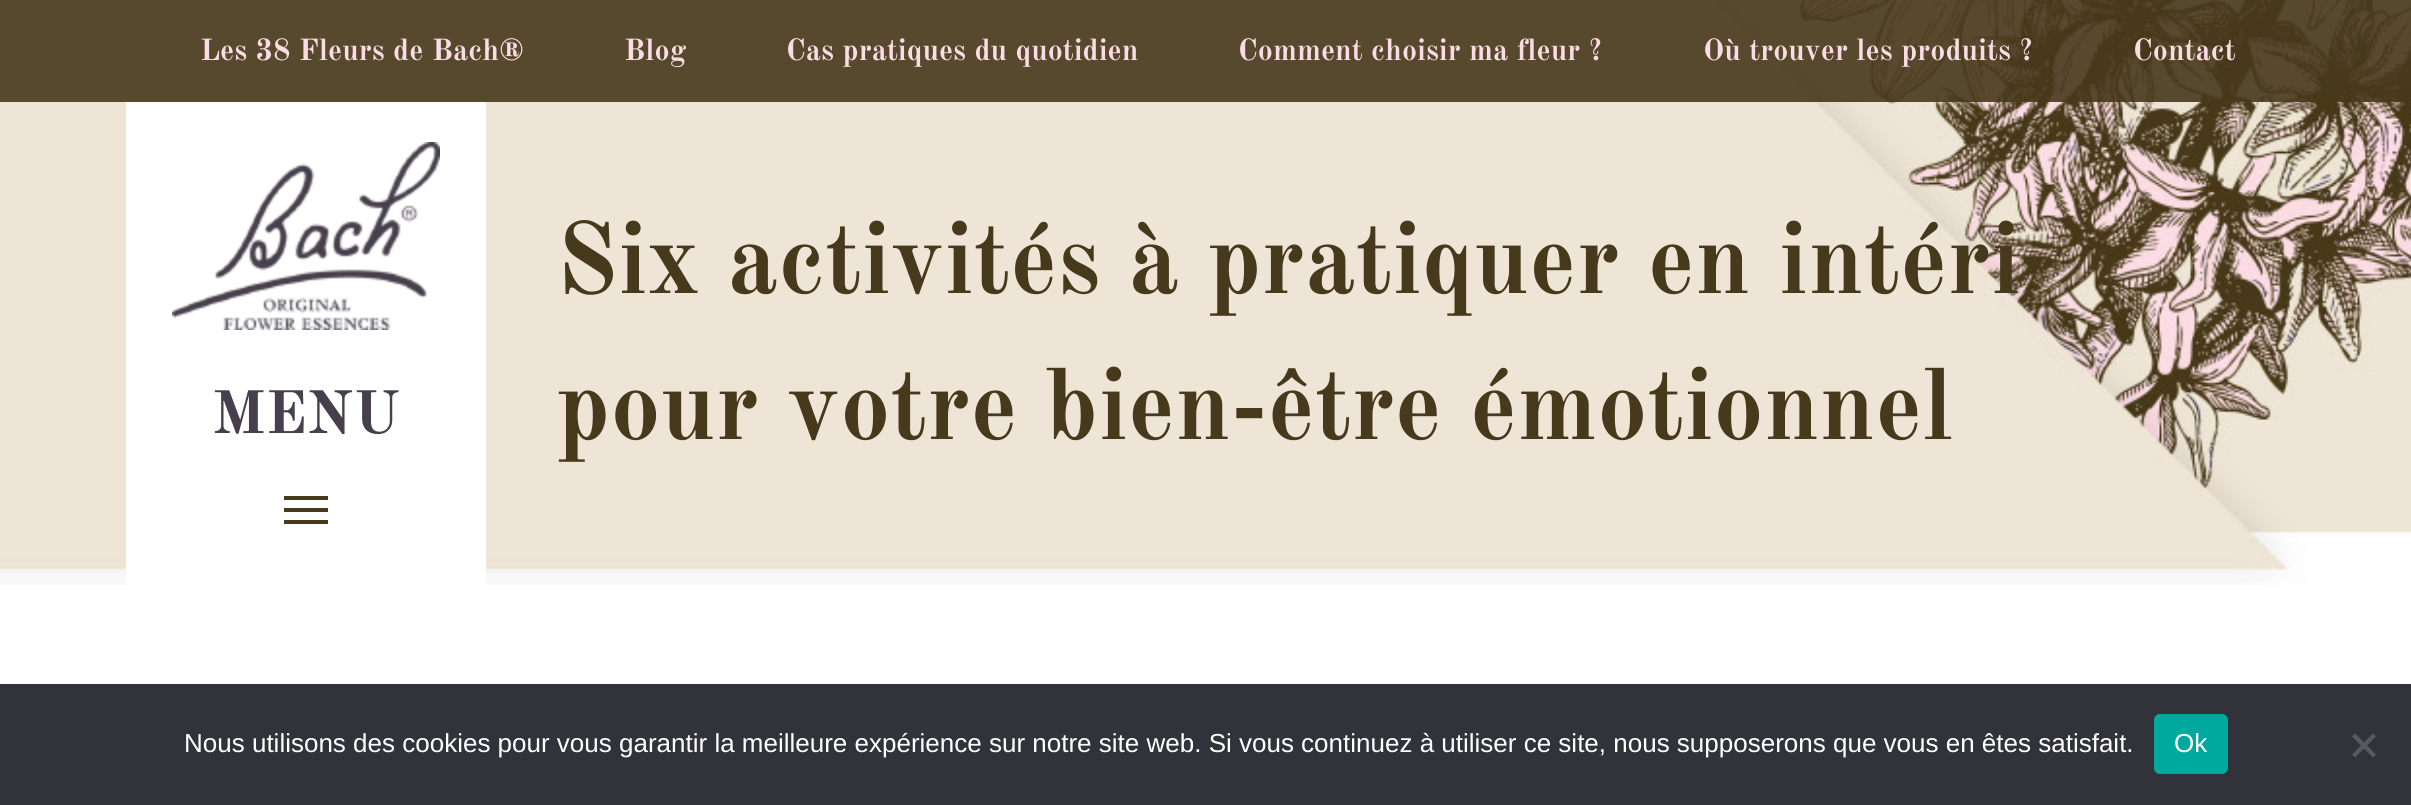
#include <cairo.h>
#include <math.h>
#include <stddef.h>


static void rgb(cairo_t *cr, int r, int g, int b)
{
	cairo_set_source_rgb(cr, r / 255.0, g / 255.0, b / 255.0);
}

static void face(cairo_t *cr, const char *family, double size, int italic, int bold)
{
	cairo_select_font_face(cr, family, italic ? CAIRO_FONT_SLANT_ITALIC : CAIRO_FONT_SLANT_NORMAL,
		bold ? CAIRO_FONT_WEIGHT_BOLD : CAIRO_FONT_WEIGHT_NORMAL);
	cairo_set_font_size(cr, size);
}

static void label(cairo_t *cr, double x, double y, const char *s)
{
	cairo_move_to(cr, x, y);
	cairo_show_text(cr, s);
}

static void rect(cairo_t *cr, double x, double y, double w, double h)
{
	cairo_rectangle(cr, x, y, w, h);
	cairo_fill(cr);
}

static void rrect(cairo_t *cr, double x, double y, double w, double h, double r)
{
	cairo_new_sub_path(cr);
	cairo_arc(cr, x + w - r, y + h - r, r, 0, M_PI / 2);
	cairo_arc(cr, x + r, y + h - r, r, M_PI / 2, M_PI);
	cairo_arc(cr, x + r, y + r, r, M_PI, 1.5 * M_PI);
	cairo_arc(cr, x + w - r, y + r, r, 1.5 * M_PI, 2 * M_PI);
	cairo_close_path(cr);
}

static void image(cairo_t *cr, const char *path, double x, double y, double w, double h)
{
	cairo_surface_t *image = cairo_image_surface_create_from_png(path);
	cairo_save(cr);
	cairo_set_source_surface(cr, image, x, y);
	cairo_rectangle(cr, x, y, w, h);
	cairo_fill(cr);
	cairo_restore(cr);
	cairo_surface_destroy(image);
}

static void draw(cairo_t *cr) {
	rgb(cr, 255, 255, 255);
	cairo_paint(cr);
	image(cr, "image0.png", 0, 0, 2411, 585);
	cairo_set_source_rgba(cr, 0.278, 0.224, 0.106, 0.9);
	rect(cr, 0, 0, 2411, 102);
	face(cr, "Old Standard TT", 30, 0, 1);
	rgb(cr, 251, 220, 228);
	label(cr, 200, 60, "Les 38 Fleurs de Bach®");
	label(cr, 624, 60, "Blog");
	label(cr, 786, 60, "Cas pratiques du quotidien");
	label(cr, 1238, 60, "Comment choisir ma fleur ?");
	label(cr, 1703, 60, "Où trouver les produits ?");
	label(cr, 2133, 60, "Contact");
	rgb(cr, 255, 255, 255);
	rect(cr, 126, 102, 360, 483);
	image(cr, "image1.png", 172, 142, 268, 188);
	face(cr, "Old Standard TT", 60, 0, 1);
	rgb(cr, 71, 64, 76);
	label(cr, 212, 433, "MENU");
	rgb(cr, 71, 57, 27);
	rect(cr, 284, 508, 44, 4);
	rect(cr, 284, 496, 44, 4);
	rect(cr, 284, 520, 44, 4);
	face(cr, "Old Standard TT", 100, 0, 1);
	label(cr, 556, 293, "Six activités à pratiquer en intéri");
	label(cr, 556, 439, "pour votre bien-être émotionnel");
	rgb(cr, 50, 50, 58);
	rect(cr, 0, 684, 2411, 121);
	face(cr, "Liberation Sans", 26, 0, 0);
	rgb(cr, 255, 255, 255);
	label(cr, 184, 752, "Nous utilisons des cookies pour vous garantir la meilleure expérience sur notre site web. Si vous continuez à utiliser ce site, nous supposerons que vous en êtes satisfait.");
	rgb(cr, 0, 169, 157);
	rrect(cr, 2154, 714, 74, 60, 6);
	cairo_fill(cr);
	rgb(cr, 255, 255, 255);
	label(cr, 2174, 752, "Ok");
	rgb(cr, 89, 89, 93);
	cairo_new_path(cr);
	cairo_move_to(cr, 2373, 733.5);
	cairo_line_to(cr, 2376, 736.5);
	cairo_line_to(cr, 2355, 757.5);
	cairo_line_to(cr, 2352, 754.5);
	cairo_close_path(cr);
	cairo_fill(cr);
	cairo_new_path(cr);
	cairo_move_to(cr, 2352, 736.5);
	cairo_line_to(cr, 2355, 733.5);
	cairo_line_to(cr, 2376, 754.5);
	cairo_line_to(cr, 2373, 757.5);
	cairo_close_path(cr);
	cairo_fill(cr);
}

int main(void) {
	cairo_surface_t *surface = cairo_image_surface_create(CAIRO_FORMAT_RGB24, 2411, 805);
	cairo_t *cr = cairo_create(surface);
	cairo_font_options_t *options = cairo_font_options_create();
	cairo_font_options_set_hint_metrics(options, CAIRO_HINT_METRICS_OFF);
	cairo_font_options_set_hint_style(options, CAIRO_HINT_STYLE_NONE);
	cairo_set_font_options(cr, options);
	cairo_set_miter_limit(cr, 4);
	draw(cr);
	cairo_surface_write_to_png(surface, "render.png");
	cairo_font_options_destroy(options);
	cairo_destroy(cr);
	cairo_surface_destroy(surface);
	return 0;
}
